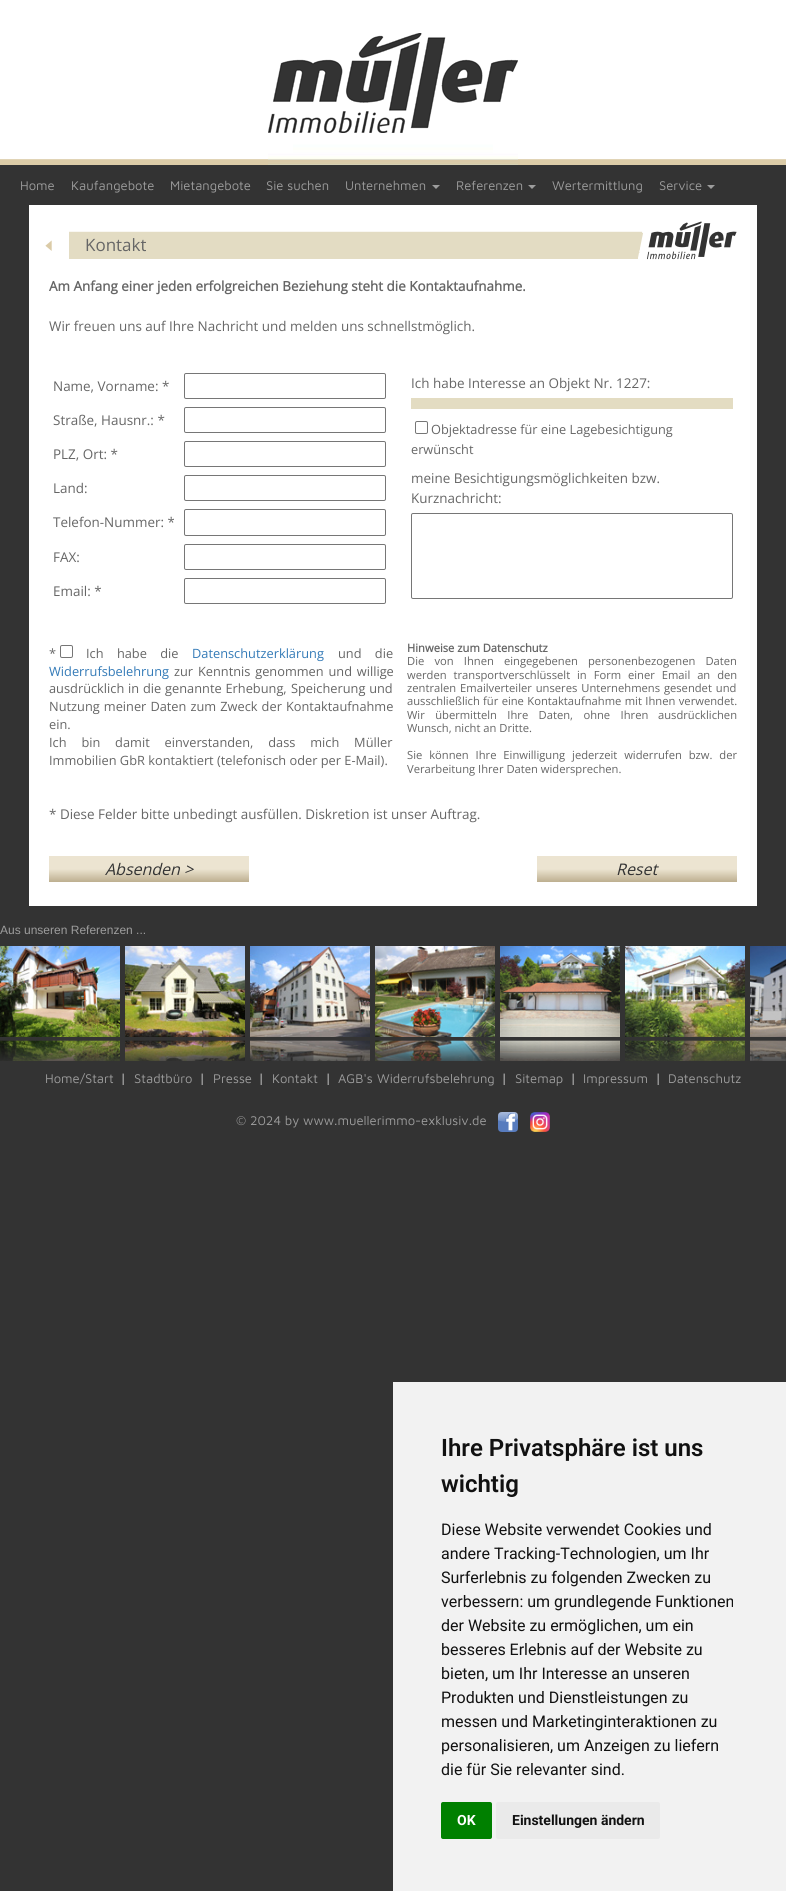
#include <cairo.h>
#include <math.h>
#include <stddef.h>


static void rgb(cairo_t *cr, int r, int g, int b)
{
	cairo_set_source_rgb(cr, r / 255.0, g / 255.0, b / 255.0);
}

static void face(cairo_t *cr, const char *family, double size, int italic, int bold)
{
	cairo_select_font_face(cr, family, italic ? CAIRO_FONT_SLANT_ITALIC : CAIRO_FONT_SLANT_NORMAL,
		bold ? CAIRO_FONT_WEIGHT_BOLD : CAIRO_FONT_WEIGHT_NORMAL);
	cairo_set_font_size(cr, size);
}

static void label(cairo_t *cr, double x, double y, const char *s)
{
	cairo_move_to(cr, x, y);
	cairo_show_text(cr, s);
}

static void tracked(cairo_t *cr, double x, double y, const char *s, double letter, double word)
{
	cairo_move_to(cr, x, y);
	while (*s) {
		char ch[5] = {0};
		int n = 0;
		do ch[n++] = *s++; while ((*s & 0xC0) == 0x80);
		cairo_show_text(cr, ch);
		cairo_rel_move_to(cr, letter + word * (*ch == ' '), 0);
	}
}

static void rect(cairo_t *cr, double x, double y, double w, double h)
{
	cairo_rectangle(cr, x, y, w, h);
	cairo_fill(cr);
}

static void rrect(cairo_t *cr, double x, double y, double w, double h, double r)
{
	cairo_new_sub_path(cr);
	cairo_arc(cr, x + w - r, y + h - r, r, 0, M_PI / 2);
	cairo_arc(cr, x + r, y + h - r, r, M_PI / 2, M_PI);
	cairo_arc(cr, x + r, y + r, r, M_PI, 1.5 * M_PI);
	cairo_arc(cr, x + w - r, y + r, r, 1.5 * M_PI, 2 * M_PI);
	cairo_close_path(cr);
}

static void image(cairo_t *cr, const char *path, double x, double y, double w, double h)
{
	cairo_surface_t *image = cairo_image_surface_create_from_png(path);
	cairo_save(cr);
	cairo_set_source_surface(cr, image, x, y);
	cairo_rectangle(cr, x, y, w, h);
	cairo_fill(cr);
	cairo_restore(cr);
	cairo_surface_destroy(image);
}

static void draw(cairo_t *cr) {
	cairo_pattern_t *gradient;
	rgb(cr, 51, 51, 51);
	cairo_paint(cr);
	image(cr, "image0.png", 0, 0, 786, 165);
	image(cr, "image1.png", 268, 33, 250, 132);
	face(cr, "Maven Pro", 13, 0, 0);
	rgb(cr, 157, 157, 157);
	label(cr, 20, 190, "Home");
	label(cr, 71, 190, "Kaufangebote");
	label(cr, 170, 190, "Mietangebote");
	label(cr, 266, 190, "Sie suchen");
	label(cr, 345, 190, "Unternehmen");
	cairo_new_path(cr);
	cairo_move_to(cr, 432, 185);
	cairo_line_to(cr, 440, 185);
	cairo_line_to(cr, 436, 189);
	cairo_close_path(cr);
	cairo_fill(cr);
	label(cr, 456, 190, "Referenzen");
	cairo_new_path(cr);
	cairo_move_to(cr, 528, 185);
	cairo_line_to(cr, 536, 185);
	cairo_line_to(cr, 532, 189);
	cairo_close_path(cr);
	cairo_fill(cr);
	label(cr, 552, 190, "Wertermittlung");
	label(cr, 659, 190, "Service");
	cairo_new_path(cr);
	cairo_move_to(cr, 707, 185);
	cairo_line_to(cr, 715, 185);
	cairo_line_to(cr, 711, 189);
	cairo_close_path(cr);
	cairo_fill(cr);
	rgb(cr, 255, 255, 255);
	rect(cr, 29, 205, 728, 701);
	image(cr, "image2.png", 45, 240, 7, 11);
	image(cr, "image3.png", 69, 221, 668, 39);
	face(cr, "Open Sans", 17, 0, 0);
	rgb(cr, 102, 102, 102);
	label(cr, 85, 251, "Kontakt");
	face(cr, "Open Sans", 13.45, 0, 1);
	label(cr, 49, 291, "Am Anfang einer jeden erfolgreichen Beziehung steht die Kontaktaufnahme.");
	face(cr, "Open Sans", 13.45, 0, 0);
	label(cr, 49, 331, "Wir freuen uns auf Ihre Nachricht und melden uns schnellstmöglich.");
	label(cr, 53, 391, "Name, Vorname: *");
	rrect(cr, 184.5, 373.5, 201, 25, 1.5);
	rgb(cr, 118, 118, 118);
	cairo_set_line_width(cr, 1);
	cairo_stroke(cr);
	rgb(cr, 102, 102, 102);
	label(cr, 53, 425, "Straße, Hausnr.: *");
	rrect(cr, 184.5, 407.5, 201, 25, 1.5);
	rgb(cr, 118, 118, 118);
	cairo_stroke(cr);
	rgb(cr, 102, 102, 102);
	label(cr, 53, 459, "PLZ, Ort: *");
	rrect(cr, 184.5, 441.5, 201, 25, 1.5);
	rgb(cr, 118, 118, 118);
	cairo_stroke(cr);
	rgb(cr, 102, 102, 102);
	label(cr, 53, 493, "Land:");
	rrect(cr, 184.5, 475.5, 201, 25, 1.5);
	rgb(cr, 118, 118, 118);
	cairo_stroke(cr);
	rgb(cr, 102, 102, 102);
	label(cr, 53, 527, "Telefon-Nummer: *");
	rrect(cr, 184.5, 509.5, 201, 26, 1.5);
	rgb(cr, 118, 118, 118);
	cairo_stroke(cr);
	rgb(cr, 102, 102, 102);
	label(cr, 53, 562, "FAX:");
	rrect(cr, 184.5, 544.5, 201, 25, 1.5);
	rgb(cr, 118, 118, 118);
	cairo_stroke(cr);
	rgb(cr, 102, 102, 102);
	label(cr, 53, 596, "Email: *");
	rrect(cr, 184.5, 578.5, 201, 25, 1.5);
	rgb(cr, 118, 118, 118);
	cairo_stroke(cr);
	rgb(cr, 102, 102, 102);
	label(cr, 411, 388, "Ich habe Interesse an Objekt Nr. 1227:");
	rgb(cr, 227, 220, 194);
	rect(cr, 411, 398, 322, 11);
	rrect(cr, 415.5, 421.5, 12, 12, 1.5);
	rgb(cr, 118, 118, 118);
	cairo_stroke(cr);
	face(cr, "Open Sans", 12.75, 0, 0);
	rgb(cr, 102, 102, 102);
	label(cr, 431, 434, "Objektadresse für eine Lagebesichtigung");
	label(cr, 411, 454, "erwünscht");
	face(cr, "Open Sans", 13.45, 0, 0);
	label(cr, 411, 483, "meine Besichtigungsmöglichkeiten bzw.");
	label(cr, 411, 503, "Kurznachricht:");
	rrect(cr, 411.5, 513.5, 321, 85, 1.5);
	rgb(cr, 118, 118, 118);
	cairo_stroke(cr);
	face(cr, "Open Sans", 12.8, 0, 0);
	rgb(cr, 102, 102, 102);
	label(cr, 49, 658, "*");
	rrect(cr, 60.5, 645.5, 12, 12, 1.5);
	rgb(cr, 118, 118, 118);
	cairo_stroke(cr);
	rgb(cr, 102, 102, 102);
	tracked(cr, 86, 658, "Ich habe die", 0, 10);
	rgb(cr, 51, 122, 183);
	label(cr, 192, 658, "Datenschutzerklärung");
	rgb(cr, 102, 102, 102);
	tracked(cr, 338, 658, "und die", 0, 10);
	rgb(cr, 51, 122, 183);
	label(cr, 49, 676, "Widerrufsbelehrung");
	rgb(cr, 102, 102, 102);
	tracked(cr, 174, 676, "zur Kenntnis genommen und willige", 0, 1.5);
	tracked(cr, 49, 693, "ausdrücklich in die genannte Erhebung,", 0, 0.5);
	tracked(cr, 291, 693, "Speicherung und", 0, 0.5);
	tracked(cr, 49, 711, "Nutzung meiner Daten zum Zweck der Kontaktaufnahme", 0, 0.75);
	label(cr, 49, 729, "ein.");
	tracked(cr, 49, 747, "Ich bin damit einverstanden, dass mich Müller", 0, 11.5);
	label(cr, 49, 765, "Immobilien GbR kontaktiert (telefonisch oder per E-Mail).");
	face(cr, "Open Sans", 11.2, 0, 1);
	label(cr, 407, 652, "Hinweise zum Datenschutz");
	face(cr, "Open Sans", 11.2, 0, 0);
	tracked(cr, 407, 665, "Die von Ihnen eingegebenen personenbezogenen Daten", 0, 7.25);
	tracked(cr, 407, 679, "werden transportverschlüsselt in Form", 0, 4);
	tracked(cr, 628, 679, "einer Email an den", 0, 4);
	tracked(cr, 407, 692, "zentralen Emailverteiler unseres Unternehmens gesendet und", 0, 1);
	label(cr, 407, 705, "ausschließlich");
	tracked(cr, 483, 705, "für eine Kontaktaufnahme mit Ihnen verwendet.", 0, 0.5);
	tracked(cr, 407, 719, "Wir übermitteln Ihre Daten, ohne Ihren", 0, 7.5);
	label(cr, 658, 719, "ausdrücklichen");
	label(cr, 407, 732, "Wunsch, nicht an Dritte.");
	tracked(cr, 407, 759, "Sie können Ihre Einwilligung jederzeit widerrufen bzw. der", 0, 4);
	label(cr, 407, 773, "Verarbeitung Ihrer Daten widersprechen.");
	face(cr, "Open Sans", 13.45, 0, 0);
	label(cr, 49, 819, "* Diese Felder bitte unbedingt ausfüllen. Diskretion ist unser Auftrag.");
	gradient = cairo_pattern_create_linear(149, 882, 149, 856);
	cairo_pattern_add_color_stop_rgba(gradient, 0, 0.741, 0.686, 0.561, 1);
	cairo_pattern_add_color_stop_rgba(gradient, 0.5, 0.925, 0.894, 0.82, 1);
	cairo_set_source(cr, gradient);
	cairo_pattern_destroy(gradient);
	rect(cr, 49, 856, 200, 26);
	face(cr, "Open Sans", 16, 1, 0);
	rgb(cr, 51, 51, 51);
	label(cr, 105, 875, "Absenden >");
	gradient = cairo_pattern_create_linear(637, 882, 637, 856);
	cairo_pattern_add_color_stop_rgba(gradient, 0, 0.741, 0.686, 0.561, 1);
	cairo_pattern_add_color_stop_rgba(gradient, 0.5, 0.925, 0.894, 0.82, 1);
	cairo_set_source(cr, gradient);
	cairo_pattern_destroy(gradient);
	rect(cr, 537, 856, 200, 26);
	rgb(cr, 51, 51, 51);
	label(cr, 616, 875, "Reset");
	face(cr, "Liberation Sans", 12, 0, 0);
	rgb(cr, 157, 157, 157);
	label(cr, 0, 934, "Aus unseren Referenzen ...");
	image(cr, "image4.png", 0, 946, 120, 91);
	image(cr, "image5.png", 0, 1040, 120, 21);
	image(cr, "image6.png", 125, 946, 120, 91);
	image(cr, "image7.png", 125, 1040, 120, 21);
	image(cr, "image8.png", 250, 946, 120, 91);
	image(cr, "image9.png", 250, 1040, 120, 21);
	image(cr, "image10.png", 375, 946, 120, 91);
	image(cr, "image11.png", 375, 1040, 120, 21);
	image(cr, "image12.png", 500, 946, 120, 91);
	image(cr, "image13.png", 500, 1040, 120, 21);
	image(cr, "image14.png", 625, 946, 120, 91);
	image(cr, "image15.png", 625, 1040, 120, 21);
	image(cr, "image16.png", 750, 946, 36, 91);
	image(cr, "image17.png", 750, 1040, 36, 21);
	face(cr, "Maven Pro", 13, 0, 0);
	label(cr, 45, 1083, "Home/Start");
	face(cr, "Open Sans", 16, 0, 0);
	label(cr, 121, 1085, "I");
	face(cr, "Maven Pro", 13, 0, 0);
	label(cr, 134, 1083, "Stadtbüro");
	face(cr, "Open Sans", 16, 0, 0);
	label(cr, 200, 1085, "I");
	face(cr, "Maven Pro", 13, 0, 0);
	label(cr, 213, 1083, "Presse");
	face(cr, "Open Sans", 16, 0, 0);
	label(cr, 259, 1085, "I");
	face(cr, "Maven Pro", 13, 0, 0);
	label(cr, 272, 1083, "Kontakt");
	face(cr, "Open Sans", 16, 0, 0);
	label(cr, 326, 1085, "I");
	face(cr, "Maven Pro", 13, 0, 0);
	label(cr, 338, 1083, "AGB's");
	label(cr, 377, 1083, "Widerrufsbelehrung");
	face(cr, "Open Sans", 16, 0, 0);
	label(cr, 502, 1085, "I");
	face(cr, "Maven Pro", 13, 0, 0);
	label(cr, 515, 1083, "Sitemap");
	face(cr, "Open Sans", 16, 0, 0);
	label(cr, 571, 1085, "I");
	face(cr, "Maven Pro", 13, 0, 0);
	label(cr, 583, 1083, "Impressum");
	face(cr, "Open Sans", 16, 0, 0);
	label(cr, 656, 1085, "I");
	face(cr, "Maven Pro", 13, 0, 0);
	label(cr, 668, 1083, "Datenschutz");
	label(cr, 236, 1125, "© 2024 by www.muellerimmo-exklusiv.de");
	image(cr, "image18.png", 498, 1112, 20, 20);
	image(cr, "image19.png", 530, 1112, 20, 20);
	rgb(cr, 242, 242, 242);
	rect(cr, 393, 1382, 393, 509);
	face(cr, "Roboto SemiBold", 24, 0, 0);
	rgb(cr, 17, 17, 17);
	label(cr, 441, 1456, "Ihre Privatsphäre ist uns");
	label(cr, 441, 1492, "wichtig");
	face(cr, "Roboto", 16, 0, 0);
	label(cr, 441, 1535, "Diese Website verwendet Cookies und");
	label(cr, 441, 1559, "andere Tracking-Technologien, um Ihr");
	label(cr, 441, 1583, "Surferlebnis zu folgenden Zwecken zu");
	label(cr, 441, 1607, "verbessern: um grundlegende Funktionen");
	label(cr, 441, 1631, "der Website zu ermöglichen, um ein");
	label(cr, 441, 1655, "besseres Erlebnis auf der Website zu");
	label(cr, 441, 1679, "bieten, um Ihr Interesse an unseren");
	label(cr, 441, 1703, "Produkten und Dienstleistungen zu");
	label(cr, 441, 1727, "messen und Marketinginteraktionen zu");
	label(cr, 441, 1751, "personalisieren, um Anzeigen zu liefern");
	label(cr, 441, 1775, "die für Sie relevanter sind.");
	rgb(cr, 0, 128, 0);
	rrect(cr, 441, 1802, 51, 37, 2);
	cairo_fill(cr);
	face(cr, "Roboto", 14, 0, 1);
	rgb(cr, 255, 255, 255);
	label(cr, 457, 1825, "OK");
	rgb(cr, 234, 234, 234);
	rrect(cr, 496, 1802, 164, 37, 2);
	cairo_fill(cr);
	rgb(cr, 17, 17, 17);
	label(cr, 512, 1825, "Einstellungen ändern");
}

int main(void) {
	cairo_surface_t *surface = cairo_image_surface_create(CAIRO_FORMAT_RGB24, 786, 1891);
	cairo_t *cr = cairo_create(surface);
	cairo_font_options_t *options = cairo_font_options_create();
	cairo_font_options_set_hint_metrics(options, CAIRO_HINT_METRICS_OFF);
	cairo_font_options_set_hint_style(options, CAIRO_HINT_STYLE_NONE);
	cairo_set_font_options(cr, options);
	cairo_set_miter_limit(cr, 4);
	draw(cr);
	cairo_surface_write_to_png(surface, "render.png");
	cairo_font_options_destroy(options);
	cairo_destroy(cr);
	cairo_surface_destroy(surface);
	return 0;
}
